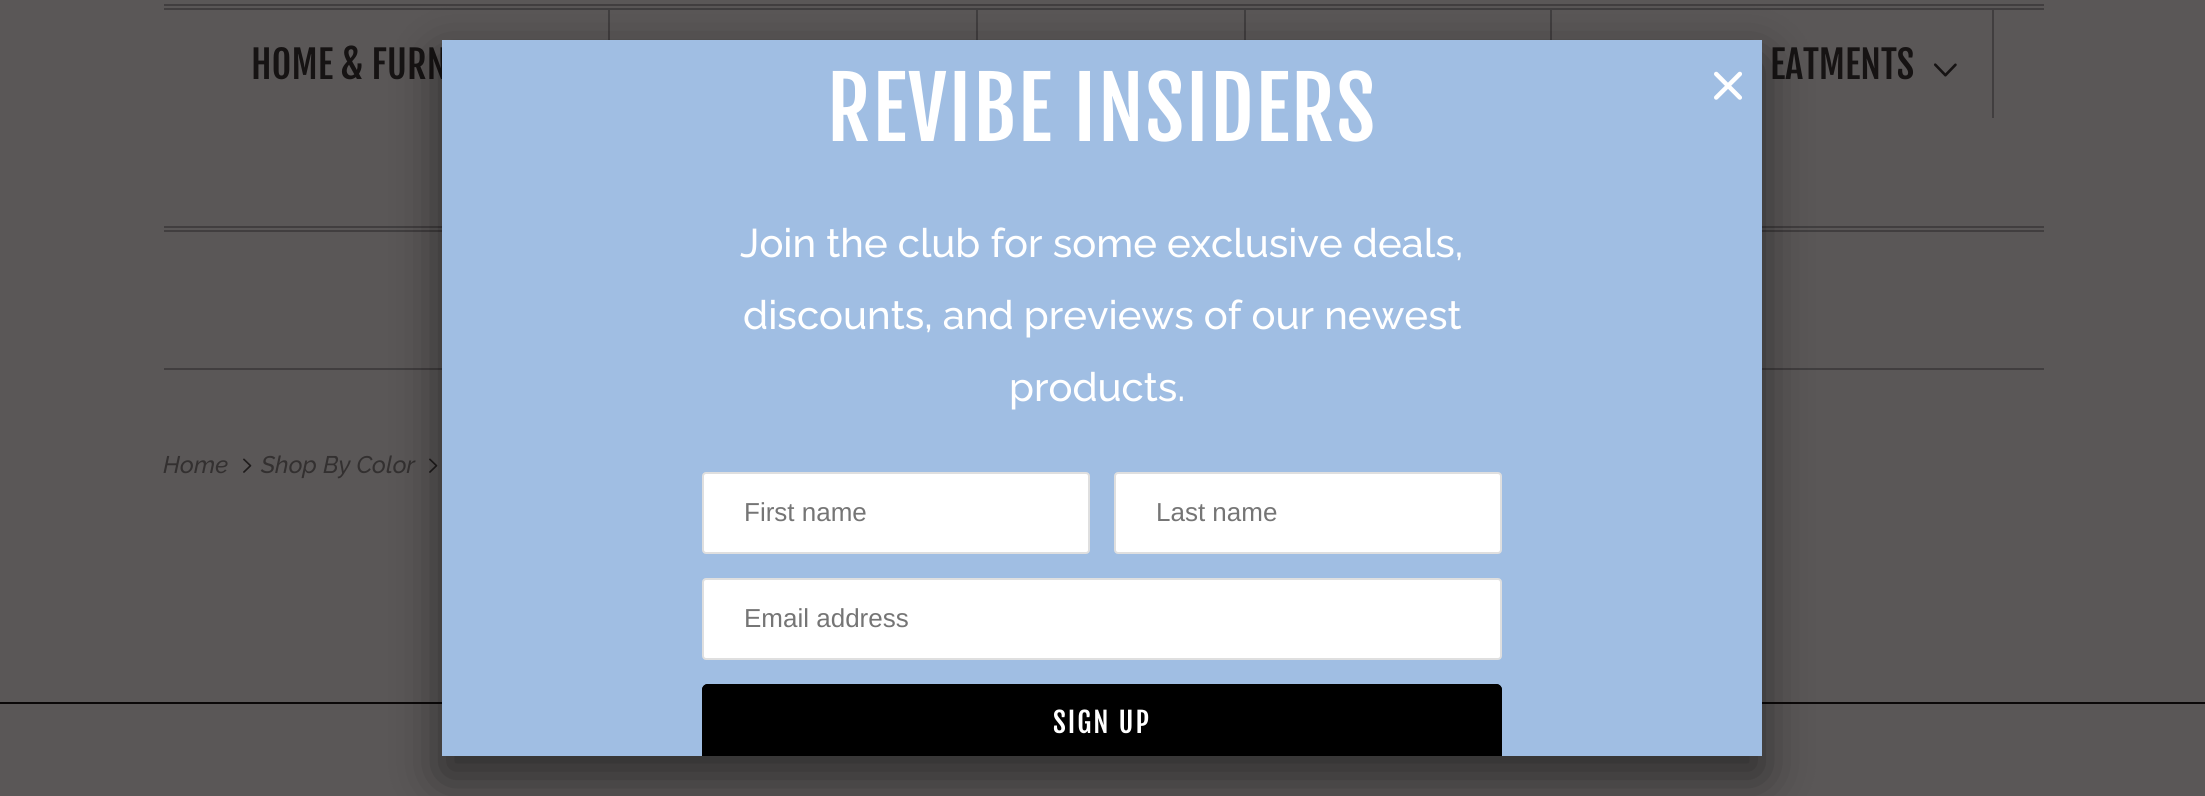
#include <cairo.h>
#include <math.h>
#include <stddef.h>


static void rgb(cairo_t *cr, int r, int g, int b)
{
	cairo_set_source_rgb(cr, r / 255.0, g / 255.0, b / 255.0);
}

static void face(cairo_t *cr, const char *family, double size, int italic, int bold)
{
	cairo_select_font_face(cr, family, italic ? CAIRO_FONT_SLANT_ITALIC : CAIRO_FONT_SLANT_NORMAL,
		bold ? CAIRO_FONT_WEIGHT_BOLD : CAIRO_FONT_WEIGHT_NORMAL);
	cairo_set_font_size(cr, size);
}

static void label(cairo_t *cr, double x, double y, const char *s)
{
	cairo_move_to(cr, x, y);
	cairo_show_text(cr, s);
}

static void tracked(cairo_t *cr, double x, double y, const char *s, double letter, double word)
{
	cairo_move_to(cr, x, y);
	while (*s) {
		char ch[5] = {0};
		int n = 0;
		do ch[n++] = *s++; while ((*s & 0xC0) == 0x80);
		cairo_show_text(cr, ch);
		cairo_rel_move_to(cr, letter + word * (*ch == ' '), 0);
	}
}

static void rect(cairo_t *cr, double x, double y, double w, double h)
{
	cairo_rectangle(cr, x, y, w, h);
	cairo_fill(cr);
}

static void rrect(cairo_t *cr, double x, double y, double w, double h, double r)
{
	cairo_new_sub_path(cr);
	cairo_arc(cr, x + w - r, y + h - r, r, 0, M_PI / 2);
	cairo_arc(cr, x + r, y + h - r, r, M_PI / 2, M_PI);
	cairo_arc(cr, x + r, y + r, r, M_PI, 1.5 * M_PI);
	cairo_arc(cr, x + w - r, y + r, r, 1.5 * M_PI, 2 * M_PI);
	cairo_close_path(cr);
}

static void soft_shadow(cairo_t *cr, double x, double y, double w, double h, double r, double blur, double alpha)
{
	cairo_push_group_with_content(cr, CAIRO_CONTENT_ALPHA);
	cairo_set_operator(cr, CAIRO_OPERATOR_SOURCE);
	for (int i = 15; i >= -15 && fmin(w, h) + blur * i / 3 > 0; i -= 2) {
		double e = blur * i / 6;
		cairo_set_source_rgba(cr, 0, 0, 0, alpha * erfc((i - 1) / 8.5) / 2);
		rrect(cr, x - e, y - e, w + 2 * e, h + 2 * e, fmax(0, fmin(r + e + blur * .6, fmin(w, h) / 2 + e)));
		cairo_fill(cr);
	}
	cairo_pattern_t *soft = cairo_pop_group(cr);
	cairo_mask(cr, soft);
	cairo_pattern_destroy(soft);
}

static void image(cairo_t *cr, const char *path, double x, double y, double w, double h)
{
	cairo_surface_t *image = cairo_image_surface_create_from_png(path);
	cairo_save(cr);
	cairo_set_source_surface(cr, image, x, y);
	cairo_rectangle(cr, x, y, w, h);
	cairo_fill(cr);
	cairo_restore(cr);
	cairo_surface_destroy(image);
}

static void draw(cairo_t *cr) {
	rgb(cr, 90, 87, 87);
	cairo_paint(cr);
	rgb(cr, 65, 62, 63);
	rect(cr, 164, 4, 1880, 2);
	rect(cr, 164, 8, 1880, 2);
	rect(cr, 164, 226, 1880, 2);
	rect(cr, 164, 230, 1880, 2);
	rect(cr, 976, 10, 2, 30);
	rect(cr, 1244, 10, 2, 30);
	rect(cr, 1550, 10, 2, 30);
	rect(cr, 608, 10, 2, 30);
	face(cr, "Fjalla One", 38, 0, 0);
	rgb(cr, 22, 19, 19);
	label(cr, 251, 79, "HOME & FURN");
	rgb(cr, 65, 62, 63);
	rect(cr, 1992, 10, 2, 108);
	rgb(cr, 22, 19, 19);
	label(cr, 1770, 79, "EATMENTS");
	image(cr, "image0.png", 1933, 63, 24, 14);
	rgb(cr, 65, 62, 63);
	rect(cr, 164, 368, 1880, 2);
	face(cr, "Raleway Medium", 24, 1, 0);
	rgb(cr, 51, 48, 48);
	label(cr, 163, 473, "Home");
	image(cr, "image1.png", 243, 458, 9, 15);
	label(cr, 261, 473, "Shop By Color");
	image(cr, "image1.png", 429, 458, 9, 15);
	rgb(cr, 11, 8, 8);
	rect(cr, 0, 702, 2205, 2);
	rgb(cr, 0, 0, 0);
	soft_shadow(cr, 442, 60, 1320, 716, 0, 25, 0.5);
	rgb(cr, 160, 190, 227);
	rect(cr, 442, 40, 1320, 716);
	face(cr, "Fjalla One", 84, 0, 0);
	rgb(cr, 255, 255, 255);
	tracked(cr, 827, 141, "REVIBE INSIDERS", 2, 0);
	face(cr, "Raleway Medium", 40, 0, 0);
	label(cr, 740, 257, "Join the club for some exclusive deals,");
	label(cr, 743, 329, "discounts, and previews of our newest");
	label(cr, 1009, 401, "products.");
	rrect(cr, 703, 473, 386, 80, 3);
	cairo_fill_preserve(cr);
	rgb(cr, 223, 223, 223);
	cairo_stroke(cr);
	face(cr, "Liberation Sans", 26, 0, 0);
	rgb(cr, 117, 117, 117);
	label(cr, 744, 521, "First name");
	rgb(cr, 255, 255, 255);
	rrect(cr, 1115, 473, 386, 80, 3);
	cairo_fill_preserve(cr);
	rgb(cr, 223, 223, 223);
	cairo_stroke(cr);
	rgb(cr, 117, 117, 117);
	label(cr, 1156, 521, "Last name");
	rgb(cr, 255, 255, 255);
	rrect(cr, 703, 579, 798, 80, 3);
	cairo_fill_preserve(cr);
	rgb(cr, 223, 223, 223);
	cairo_stroke(cr);
	rgb(cr, 117, 117, 117);
	label(cr, 744, 627, "Email address");
	rgb(cr, 0, 0, 0);
	cairo_new_path(cr);
	cairo_move_to(cr, 708, 684);
	cairo_line_to(cr, 1496, 684);
	cairo_curve_to(cr, 1499.5, 684, 1502, 686.5, 1502, 690);
	cairo_line_to(cr, 1502, 756);
	cairo_line_to(cr, 702, 756);
	cairo_line_to(cr, 702, 690);
	cairo_curve_to(cr, 702, 686.5, 704.5, 684, 708, 684);
	cairo_close_path(cr);
	cairo_fill(cr);
	cairo_save(cr);
	cairo_rectangle(cr, 442, 40, 1320, 716);
	cairo_clip(cr);
	rrect(cr, 703, 685, 798, 76, 5);
	cairo_stroke(cr);
	cairo_restore(cr);
	face(cr, "Fjalla One", 28, 0, 0);
	rgb(cr, 255, 255, 255);
	tracked(cr, 1053, 733, "SIGN UP", 2, 0);
	image(cr, "image2.png", 1714, 71, 28, 29);
}

int main(void) {
	cairo_surface_t *surface = cairo_image_surface_create(CAIRO_FORMAT_RGB24, 2205, 796);
	cairo_t *cr = cairo_create(surface);
	cairo_font_options_t *options = cairo_font_options_create();
	cairo_font_options_set_hint_metrics(options, CAIRO_HINT_METRICS_OFF);
	cairo_font_options_set_hint_style(options, CAIRO_HINT_STYLE_NONE);
	cairo_set_font_options(cr, options);
	cairo_set_miter_limit(cr, 4);
	draw(cr);
	cairo_surface_write_to_png(surface, "render.png");
	cairo_font_options_destroy(options);
	cairo_destroy(cr);
	cairo_surface_destroy(surface);
	return 0;
}
